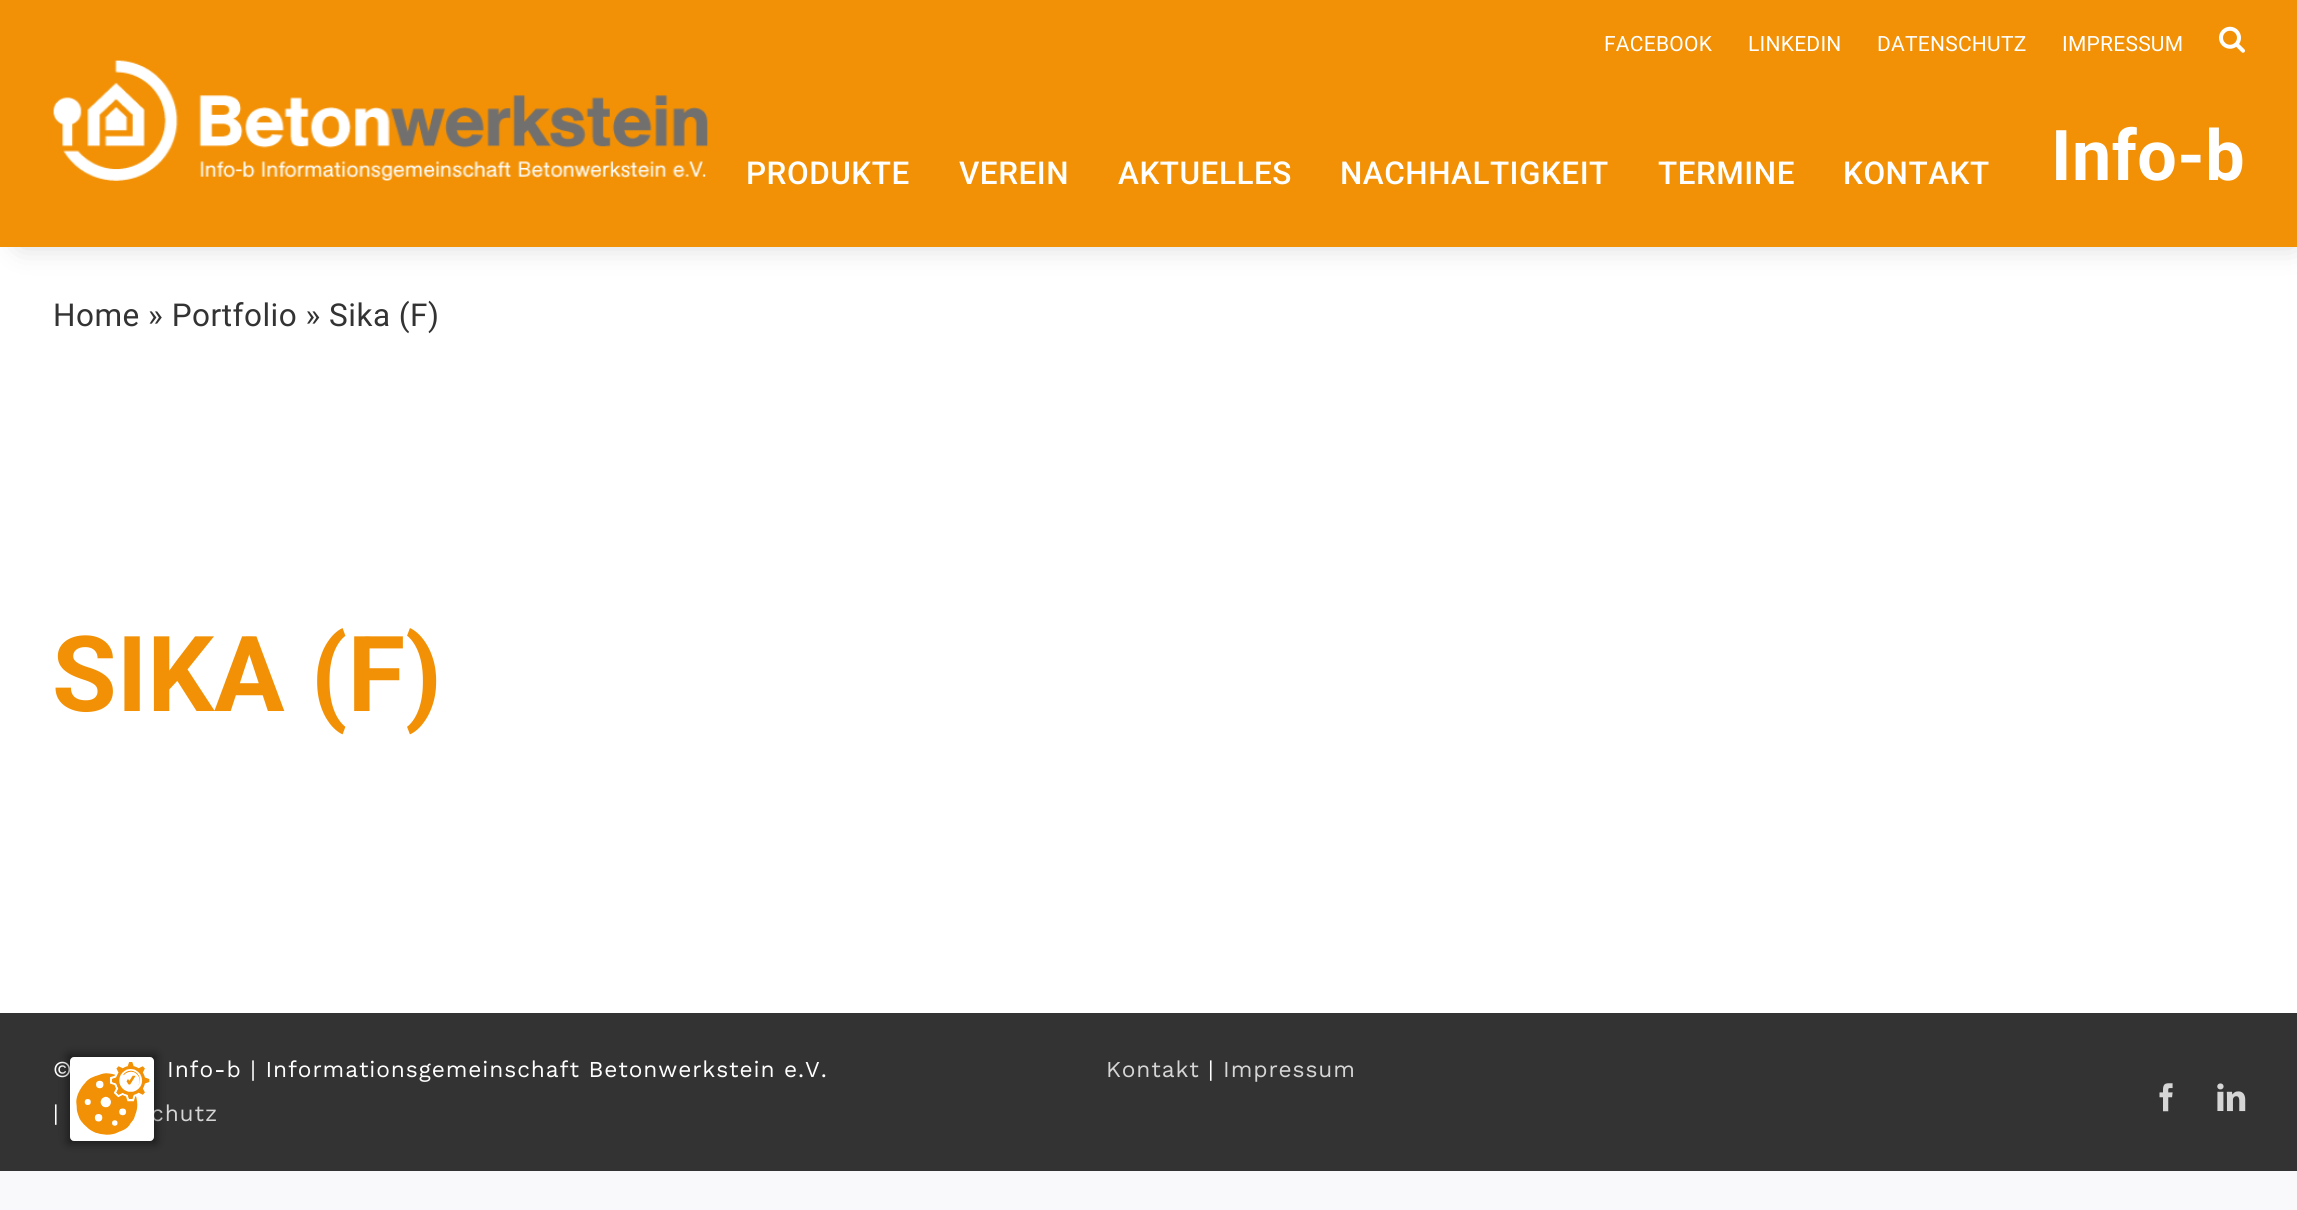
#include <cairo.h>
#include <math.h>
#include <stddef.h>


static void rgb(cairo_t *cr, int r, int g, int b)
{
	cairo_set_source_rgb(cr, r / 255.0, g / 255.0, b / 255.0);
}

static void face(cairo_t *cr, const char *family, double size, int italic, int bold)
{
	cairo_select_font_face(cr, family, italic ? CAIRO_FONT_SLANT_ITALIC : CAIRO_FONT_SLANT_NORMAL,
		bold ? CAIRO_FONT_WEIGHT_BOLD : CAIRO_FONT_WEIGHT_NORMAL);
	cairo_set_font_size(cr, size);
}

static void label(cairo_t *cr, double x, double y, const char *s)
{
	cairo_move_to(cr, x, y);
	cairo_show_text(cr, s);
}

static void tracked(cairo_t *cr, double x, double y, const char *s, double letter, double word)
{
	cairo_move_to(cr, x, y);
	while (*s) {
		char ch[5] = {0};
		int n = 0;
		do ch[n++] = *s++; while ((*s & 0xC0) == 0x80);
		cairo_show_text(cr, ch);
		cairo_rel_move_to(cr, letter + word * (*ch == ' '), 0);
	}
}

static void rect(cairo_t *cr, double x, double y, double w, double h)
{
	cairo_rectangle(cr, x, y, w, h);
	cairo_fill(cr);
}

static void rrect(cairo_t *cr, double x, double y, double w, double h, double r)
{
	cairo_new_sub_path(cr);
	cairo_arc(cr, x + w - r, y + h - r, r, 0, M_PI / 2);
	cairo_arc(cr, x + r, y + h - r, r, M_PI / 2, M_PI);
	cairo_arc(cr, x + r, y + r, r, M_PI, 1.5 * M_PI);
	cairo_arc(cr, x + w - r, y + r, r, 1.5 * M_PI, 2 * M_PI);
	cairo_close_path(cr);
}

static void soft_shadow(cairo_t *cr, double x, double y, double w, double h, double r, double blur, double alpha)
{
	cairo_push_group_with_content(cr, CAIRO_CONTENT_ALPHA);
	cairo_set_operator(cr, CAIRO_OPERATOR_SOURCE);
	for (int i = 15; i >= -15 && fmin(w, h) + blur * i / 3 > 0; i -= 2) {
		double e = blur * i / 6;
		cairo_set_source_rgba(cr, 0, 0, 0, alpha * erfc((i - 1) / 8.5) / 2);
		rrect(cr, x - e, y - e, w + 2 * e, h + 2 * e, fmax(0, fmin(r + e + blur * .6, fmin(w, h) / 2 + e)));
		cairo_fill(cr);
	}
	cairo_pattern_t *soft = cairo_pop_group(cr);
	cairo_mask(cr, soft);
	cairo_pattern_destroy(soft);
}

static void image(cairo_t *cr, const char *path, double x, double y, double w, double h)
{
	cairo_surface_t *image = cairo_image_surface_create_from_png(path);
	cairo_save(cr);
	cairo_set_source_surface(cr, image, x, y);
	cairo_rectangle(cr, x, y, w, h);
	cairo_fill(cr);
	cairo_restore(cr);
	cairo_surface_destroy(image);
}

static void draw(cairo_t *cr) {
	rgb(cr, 249, 249, 251);
	cairo_paint(cr);
	rgb(cr, 255, 255, 255);
	rect(cr, 0, 247, 2297, 766);
	rgb(cr, 0, 0, 0);
	soft_shadow(cr, 21, 21, 2273, 222, 0, 15, 0.2);
	rgb(cr, 242, 145, 6);
	rect(cr, 0, 0, 2297, 247);
	face(cr, "Roboto", 21, 0, 0);
	rgb(cr, 255, 255, 255);
	tracked(cr, 1604, 51, "FACEBOOK", 0.25, 0);
	tracked(cr, 1748, 51, "LINKEDIN", 0.25, 0);
	tracked(cr, 1877, 51, "DATENSCHUTZ", 0.25, 0);
	tracked(cr, 2062, 51, "IMPRESSUM", 0.25, 0);
	image(cr, "image0.png", 2219, 26, 26, 27);
	image(cr, "image1.png", 53, 60, 655, 121);
	face(cr, "Roboto Medium", 31.5, 0, 0);
	tracked(cr, 746, 184, "PRODUKTE", 0.5, 0);
	tracked(cr, 959, 184, "VEREIN", 0.5, 0);
	tracked(cr, 1118, 184, "AKTUELLES", 0.5, 0);
	tracked(cr, 1340, 184, "NACHHALTIGKEIT", 0.5, 0);
	tracked(cr, 1658, 184, "TERMINE", 0.5, 0);
	tracked(cr, 1843, 184, "KONTAKT", 0.5, 0);
	face(cr, "Roboto", 70, 0, 1);
	tracked(cr, 2051, 180, "Info-b", 0.5, 0);
	face(cr, "Roboto", 31.5, 0, 0);
	rgb(cr, 51, 51, 51);
	tracked(cr, 53, 326, "Home » Portfolio » Sika (F)", 0.5, 0);
	face(cr, "Roboto", 105, 0, 1);
	rgb(cr, 242, 145, 6);
	label(cr, 52, 711, "SIKA (F)");
	rgb(cr, 51, 51, 51);
	rect(cr, 0, 1013, 2297, 158);
	face(cr, "Work Sans", 22.75, 0, 0);
	rgb(cr, 255, 255, 255);
	tracked(cr, 53, 1077, "©", 0.9, 0);
	tracked(cr, 167, 1077, "Info-b | Informationsgemeinschaft Betonwerkstein e.V.", 0.9, 0);
	rgb(cr, 214, 214, 214);
	tracked(cr, 1106, 1077, "Kontakt", 0.9, 0);
	rgb(cr, 255, 255, 255);
	tracked(cr, 1208, 1077, "|", 0.9, 0);
	rgb(cr, 214, 214, 214);
	tracked(cr, 1223, 1077, "Impressum", 0.9, 0);
	rgb(cr, 255, 255, 255);
	tracked(cr, 53, 1121, "|", 0.9, 0);
	rgb(cr, 214, 214, 214);
	tracked(cr, 151, 1121, "chutz", 0.9, 0);
	image(cr, "image2.png", 2159, 1083, 14, 29);
	image(cr, "image3.png", 2217, 1083, 29, 29);
	rgb(cr, 0, 0, 0);
	soft_shadow(cr, 68, 1055, 88, 88, 0, 5, 0.5);
	image(cr, "image4.png", 70, 1057, 84, 84);
}

int main(void) {
	cairo_surface_t *surface = cairo_image_surface_create(CAIRO_FORMAT_RGB24, 2297, 1210);
	cairo_t *cr = cairo_create(surface);
	cairo_font_options_t *options = cairo_font_options_create();
	cairo_font_options_set_hint_metrics(options, CAIRO_HINT_METRICS_OFF);
	cairo_font_options_set_hint_style(options, CAIRO_HINT_STYLE_NONE);
	cairo_set_font_options(cr, options);
	cairo_set_miter_limit(cr, 4);
	draw(cr);
	cairo_surface_write_to_png(surface, "render.png");
	cairo_font_options_destroy(options);
	cairo_destroy(cr);
	cairo_surface_destroy(surface);
	return 0;
}
